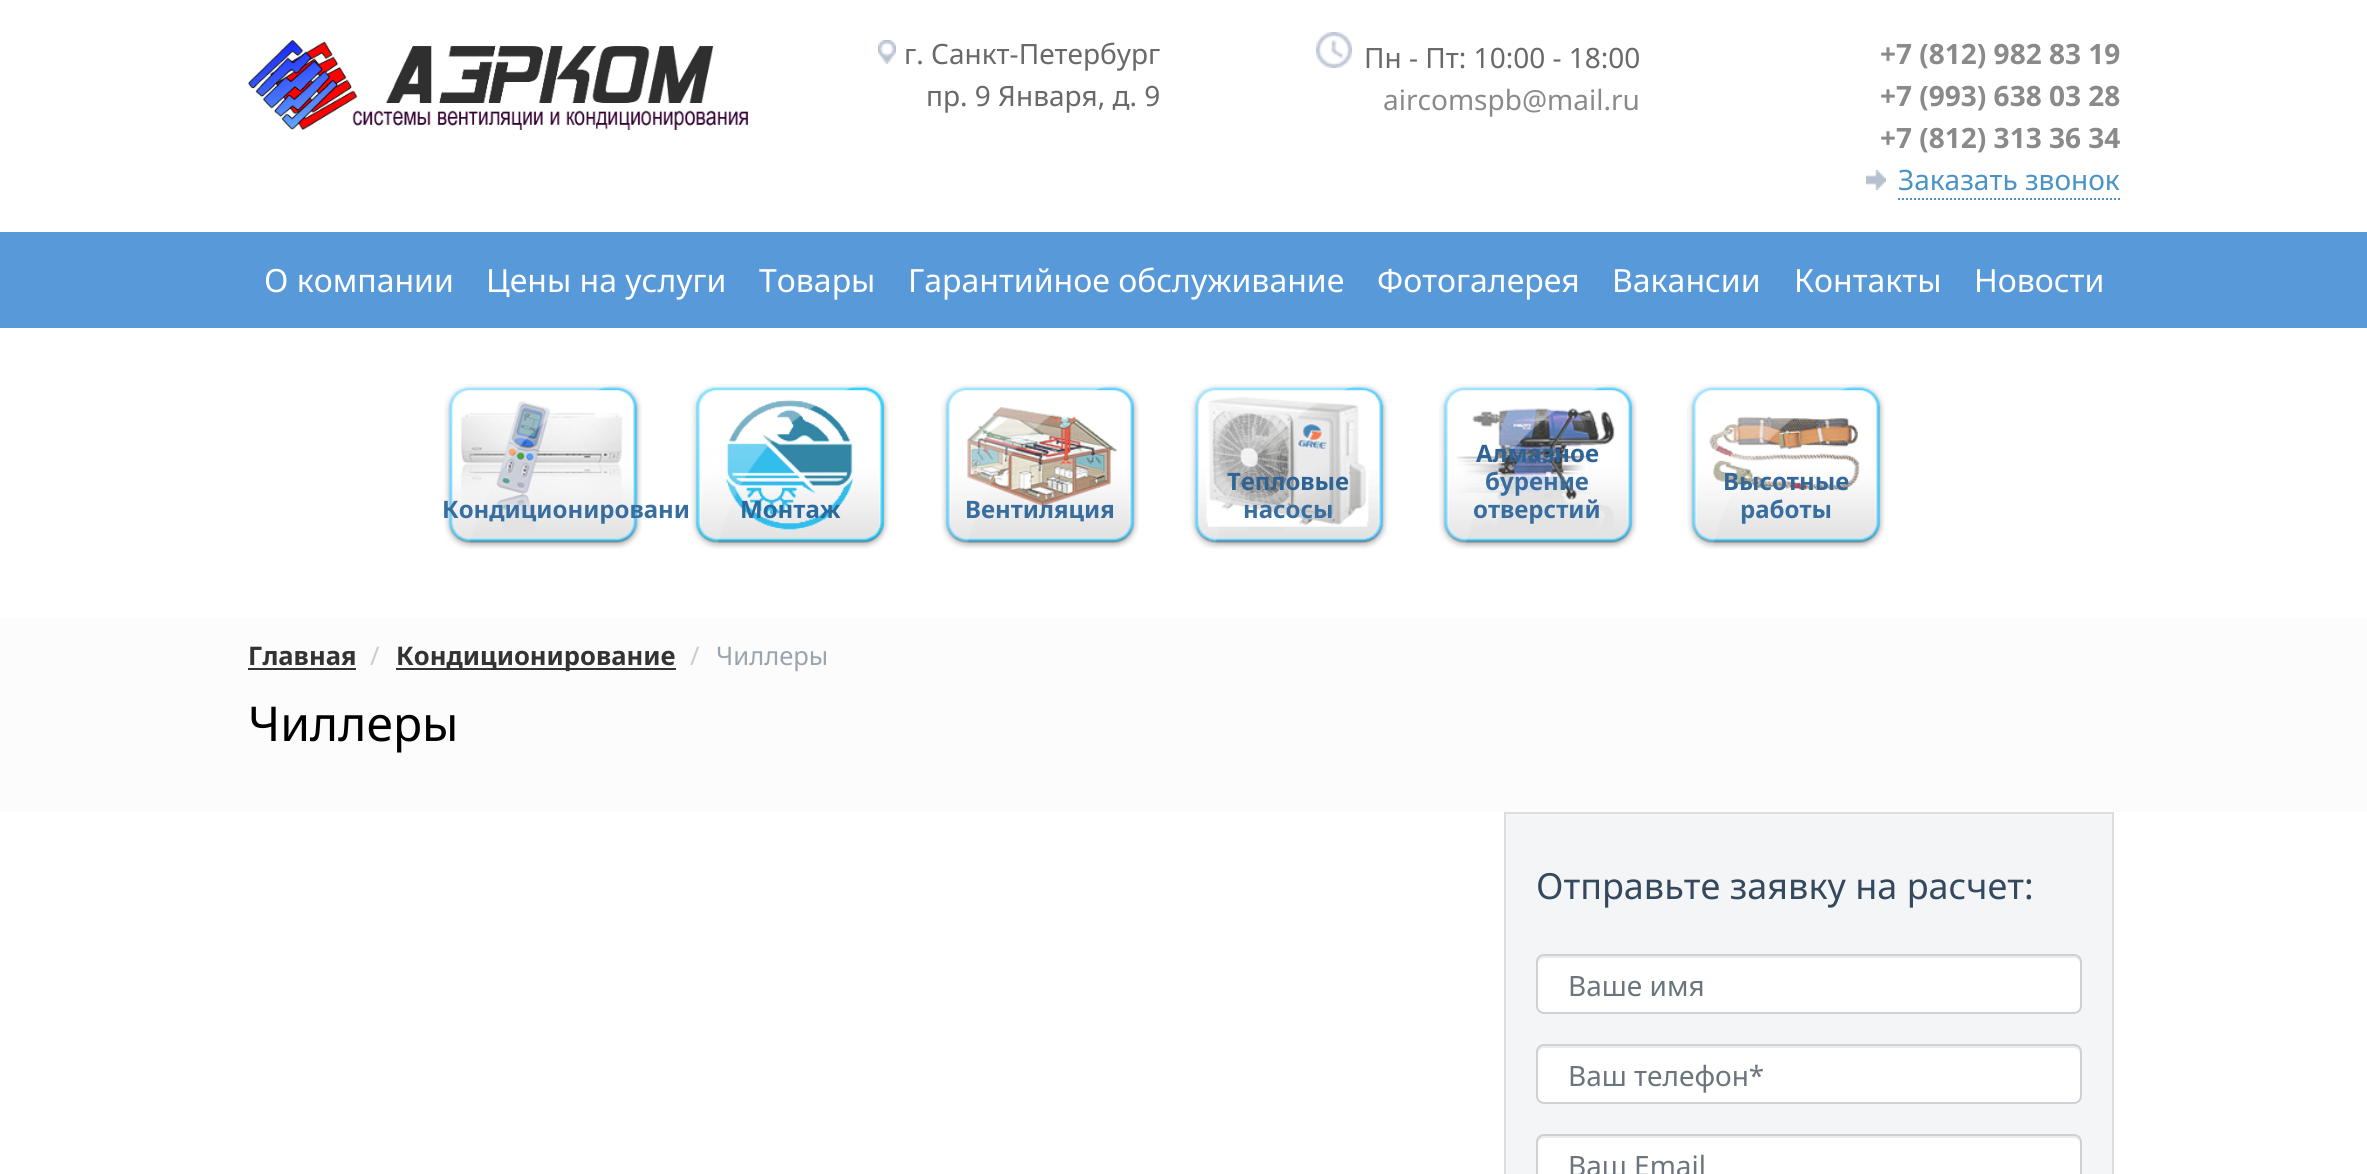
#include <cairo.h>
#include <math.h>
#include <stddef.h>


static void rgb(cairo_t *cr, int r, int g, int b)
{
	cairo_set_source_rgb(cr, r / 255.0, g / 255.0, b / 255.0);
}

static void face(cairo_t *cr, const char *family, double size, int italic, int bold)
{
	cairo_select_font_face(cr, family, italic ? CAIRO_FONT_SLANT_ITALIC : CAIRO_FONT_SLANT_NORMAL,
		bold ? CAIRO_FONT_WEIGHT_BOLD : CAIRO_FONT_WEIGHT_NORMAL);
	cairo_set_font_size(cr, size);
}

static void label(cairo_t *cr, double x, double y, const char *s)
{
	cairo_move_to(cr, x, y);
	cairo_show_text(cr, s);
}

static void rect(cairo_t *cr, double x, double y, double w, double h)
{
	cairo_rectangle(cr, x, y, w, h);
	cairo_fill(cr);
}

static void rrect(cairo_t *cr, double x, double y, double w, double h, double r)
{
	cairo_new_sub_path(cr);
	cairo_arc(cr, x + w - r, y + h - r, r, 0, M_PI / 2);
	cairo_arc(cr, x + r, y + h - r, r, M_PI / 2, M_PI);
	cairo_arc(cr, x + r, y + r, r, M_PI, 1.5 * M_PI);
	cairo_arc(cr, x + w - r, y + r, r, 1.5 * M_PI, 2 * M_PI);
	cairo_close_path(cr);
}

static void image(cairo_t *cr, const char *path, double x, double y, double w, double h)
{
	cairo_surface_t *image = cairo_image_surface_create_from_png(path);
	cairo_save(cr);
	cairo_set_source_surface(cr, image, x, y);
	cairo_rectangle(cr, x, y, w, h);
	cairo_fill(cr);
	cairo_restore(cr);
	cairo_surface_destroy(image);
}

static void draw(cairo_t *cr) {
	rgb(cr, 255, 255, 255);
	cairo_paint(cr);
	image(cr, "image0.png", 248, 40, 500, 90);
	image(cr, "image1.png", 878, 40, 18, 24);
	face(cr, "Noto Sans", 28, 0, 0);
	rgb(cr, 105, 105, 105);
	label(cr, 904, 64, "г. Санкт-Петербург");
	label(cr, 926, 106, "пр. 9 Января, д. 9");
	image(cr, "image2.png", 1316, 32, 36, 36);
	label(cr, 1364, 68, "Пн - Пт: 10:00 - 18:00");
	rgb(cr, 138, 138, 138);
	label(cr, 1383, 110, "aircomspb@mail.ru");
	face(cr, "Noto Sans", 28, 0, 1);
	label(cr, 1880, 64, "+7 (812) 982 83 19");
	label(cr, 1880, 106, "+7 (993) 638 03 28");
	label(cr, 1880, 148, "+7 (812) 313 36 34");
	image(cr, "image3.png", 1866, 170, 20, 20);
	face(cr, "Noto Sans", 28, 0, 0);
	rgb(cr, 74, 147, 196);
	label(cr, 1898, 190, "Заказать звонок");
	cairo_new_path(cr);
	cairo_move_to(cr, 1898, 199);
	cairo_line_to(cr, 2120, 199);
	cairo_set_dash(cr, (double[]){2, 2}, 2, 0);
	cairo_stroke(cr);
	rgb(cr, 88, 153, 217);
	rect(cr, 0, 232, 2367, 96);
	face(cr, "Noto Sans", 32, 0, 0);
	rgb(cr, 255, 255, 255);
	label(cr, 264, 292, "О компании");
	label(cr, 486, 292, "Цены на услуги");
	label(cr, 759, 292, "Товары");
	label(cr, 908, 292, "Гарантийное обслуживание");
	label(cr, 1377, 292, "Фотогалерея");
	label(cr, 1612, 292, "Вакансии");
	label(cr, 1794, 292, "Контакты");
	label(cr, 1974, 292, "Новости");
	image(cr, "image4.png", 444, 384, 198, 165);
	image(cr, "image5.png", 445, 385, 164, 160);
	face(cr, "Noto Sans", 24, 0, 1);
	rgb(cr, 55, 109, 159);
	label(cr, 442, 518, "Кондиционировани");
	image(cr, "image6.png", 690, 384, 199, 165);
	image(cr, "image7.png", 691, 385, 166, 160);
	rgb(cr, 43, 106, 159);
	label(cr, 740, 518, "Монтаж");
	image(cr, "image8.png", 941, 384, 198, 165);
	image(cr, "image9.png", 942, 385, 165, 161);
	rgb(cr, 55, 109, 159);
	label(cr, 965, 518, "Вентиляция");
	image(cr, "image10.png", 1190, 384, 198, 165);
	image(cr, "image11.png", 1191, 385, 164, 160);
	rgb(cr, 46, 100, 149);
	label(cr, 1227, 490, "Тепловые");
	rgb(cr, 55, 109, 159);
	label(cr, 1243, 518, "насосы");
	image(cr, "image12.png", 1439, 384, 198, 165);
	image(cr, "image13.png", 1440, 385, 165, 161);
	rgb(cr, 46, 100, 149);
	label(cr, 1476, 462, "Алмазное");
	rgb(cr, 55, 109, 159);
	label(cr, 1485, 490, "бурение");
	label(cr, 1473, 518, "отверстий");
	image(cr, "image14.png", 1687, 384, 198, 165);
	image(cr, "image15.png", 1688, 385, 165, 161);
	rgb(cr, 52, 104, 153);
	label(cr, 1723, 490, "Высотные");
	rgb(cr, 55, 109, 159);
	label(cr, 1740, 518, "работы");
	rgb(cr, 252, 252, 252);
	rect(cr, 0, 618, 2367, 194);
	face(cr, "Noto Sans", 25.6, 0, 1);
	rgb(cr, 51, 51, 51);
	label(cr, 248, 665, "Главная");
	rect(cr, 248, 668, 108, 2);
	face(cr, "Noto Sans", 25.6, 0, 0);
	rgb(cr, 204, 204, 204);
	label(cr, 370, 665, "/");
	rgb(cr, 51, 51, 51);
	rect(cr, 396, 668, 280, 2);
	face(cr, "Noto Sans", 25.6, 0, 1);
	label(cr, 396, 665, "Кондиционирование");
	face(cr, "Noto Sans", 25.6, 0, 0);
	rgb(cr, 204, 204, 204);
	label(cr, 690, 665, "/");
	rgb(cr, 154, 164, 175);
	label(cr, 716, 665, "Чиллеры");
	face(cr, "Noto Sans", 48, 0, 0);
	rgb(cr, 0, 0, 0);
	label(cr, 248, 741, "Чиллеры");
	rgb(cr, 244, 245, 246);
	cairo_rectangle(cr, 1505, 813, 608, 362);
	cairo_fill_preserve(cr);
	rgb(cr, 221, 221, 221);
	cairo_set_dash(cr, NULL, 0, 0);
	cairo_stroke(cr);
	face(cr, "Noto Sans", 36, 0, 0);
	rgb(cr, 52, 73, 94);
	label(cr, 1536, 899, "Отправьте заявку на расчет:");
	rgb(cr, 255, 255, 255);
	rrect(cr, 1538, 956, 542, 56, 6);
	cairo_fill(cr);
	rgb(cr, 236, 236, 236);
	cairo_new_path(cr);
	cairo_move_to(cr, 1544, 958);
	cairo_line_to(cr, 2074, 958);
	cairo_curve_to(cr, 2077, 958, 2080, 961, 2080, 964);
	cairo_line_to(cr, 2080, 962);
	cairo_curve_to(cr, 2080, 959, 2077, 956, 2074, 956);
	cairo_line_to(cr, 1544, 956);
	cairo_curve_to(cr, 1541, 956, 1538, 959, 1538, 962);
	cairo_line_to(cr, 1538, 964);
	cairo_curve_to(cr, 1538, 961, 1541, 958, 1544, 958);
	cairo_close_path(cr);
	cairo_fill(cr);
	rrect(cr, 1537, 955, 544, 58, 7);
	rgb(cr, 206, 208, 212);
	cairo_stroke(cr);
	face(cr, "Noto Sans", 28, 0, 0);
	rgb(cr, 108, 117, 125);
	label(cr, 1568, 996, "Ваше имя");
	rgb(cr, 255, 255, 255);
	rrect(cr, 1538, 1046, 542, 56, 6);
	cairo_fill(cr);
	rgb(cr, 236, 236, 236);
	cairo_new_path(cr);
	cairo_move_to(cr, 1544, 1048);
	cairo_line_to(cr, 2074, 1048);
	cairo_curve_to(cr, 2077, 1048, 2080, 1051, 2080, 1054);
	cairo_line_to(cr, 2080, 1052);
	cairo_curve_to(cr, 2080, 1049, 2077, 1046, 2074, 1046);
	cairo_line_to(cr, 1544, 1046);
	cairo_curve_to(cr, 1541, 1046, 1538, 1049, 1538, 1052);
	cairo_line_to(cr, 1538, 1054);
	cairo_curve_to(cr, 1538, 1051, 1541, 1048, 1544, 1048);
	cairo_close_path(cr);
	cairo_fill(cr);
	rrect(cr, 1537, 1045, 544, 58, 7);
	rgb(cr, 206, 208, 212);
	cairo_stroke(cr);
	rgb(cr, 108, 117, 125);
	label(cr, 1568, 1086, "Ваш телефон*");
	rgb(cr, 255, 255, 255);
	rrect(cr, 1538, 1136, 542, 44, 6);
	cairo_fill(cr);
	rgb(cr, 236, 236, 236);
	cairo_new_path(cr);
	cairo_move_to(cr, 1544, 1138);
	cairo_line_to(cr, 2074, 1138);
	cairo_curve_to(cr, 2077, 1138, 2080, 1141, 2080, 1144);
	cairo_line_to(cr, 2080, 1142);
	cairo_curve_to(cr, 2080, 1139, 2077, 1136, 2074, 1136);
	cairo_line_to(cr, 1544, 1136);
	cairo_curve_to(cr, 1541, 1136, 1538, 1139, 1538, 1142);
	cairo_line_to(cr, 1538, 1144);
	cairo_curve_to(cr, 1538, 1141, 1541, 1138, 1544, 1138);
	cairo_close_path(cr);
	cairo_fill(cr);
	rrect(cr, 1537, 1135, 544, 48, 7);
	rgb(cr, 206, 208, 212);
	cairo_stroke(cr);
	rgb(cr, 108, 117, 125);
	label(cr, 1568, 1176, "Ваш Email");
}

int main(void) {
	cairo_surface_t *surface = cairo_image_surface_create(CAIRO_FORMAT_RGB24, 2367, 1174);
	cairo_t *cr = cairo_create(surface);
	cairo_font_options_t *options = cairo_font_options_create();
	cairo_font_options_set_hint_metrics(options, CAIRO_HINT_METRICS_OFF);
	cairo_font_options_set_hint_style(options, CAIRO_HINT_STYLE_NONE);
	cairo_set_font_options(cr, options);
	cairo_set_miter_limit(cr, 4);
	draw(cr);
	cairo_surface_write_to_png(surface, "render.png");
	cairo_font_options_destroy(options);
	cairo_destroy(cr);
	cairo_surface_destroy(surface);
	return 0;
}
